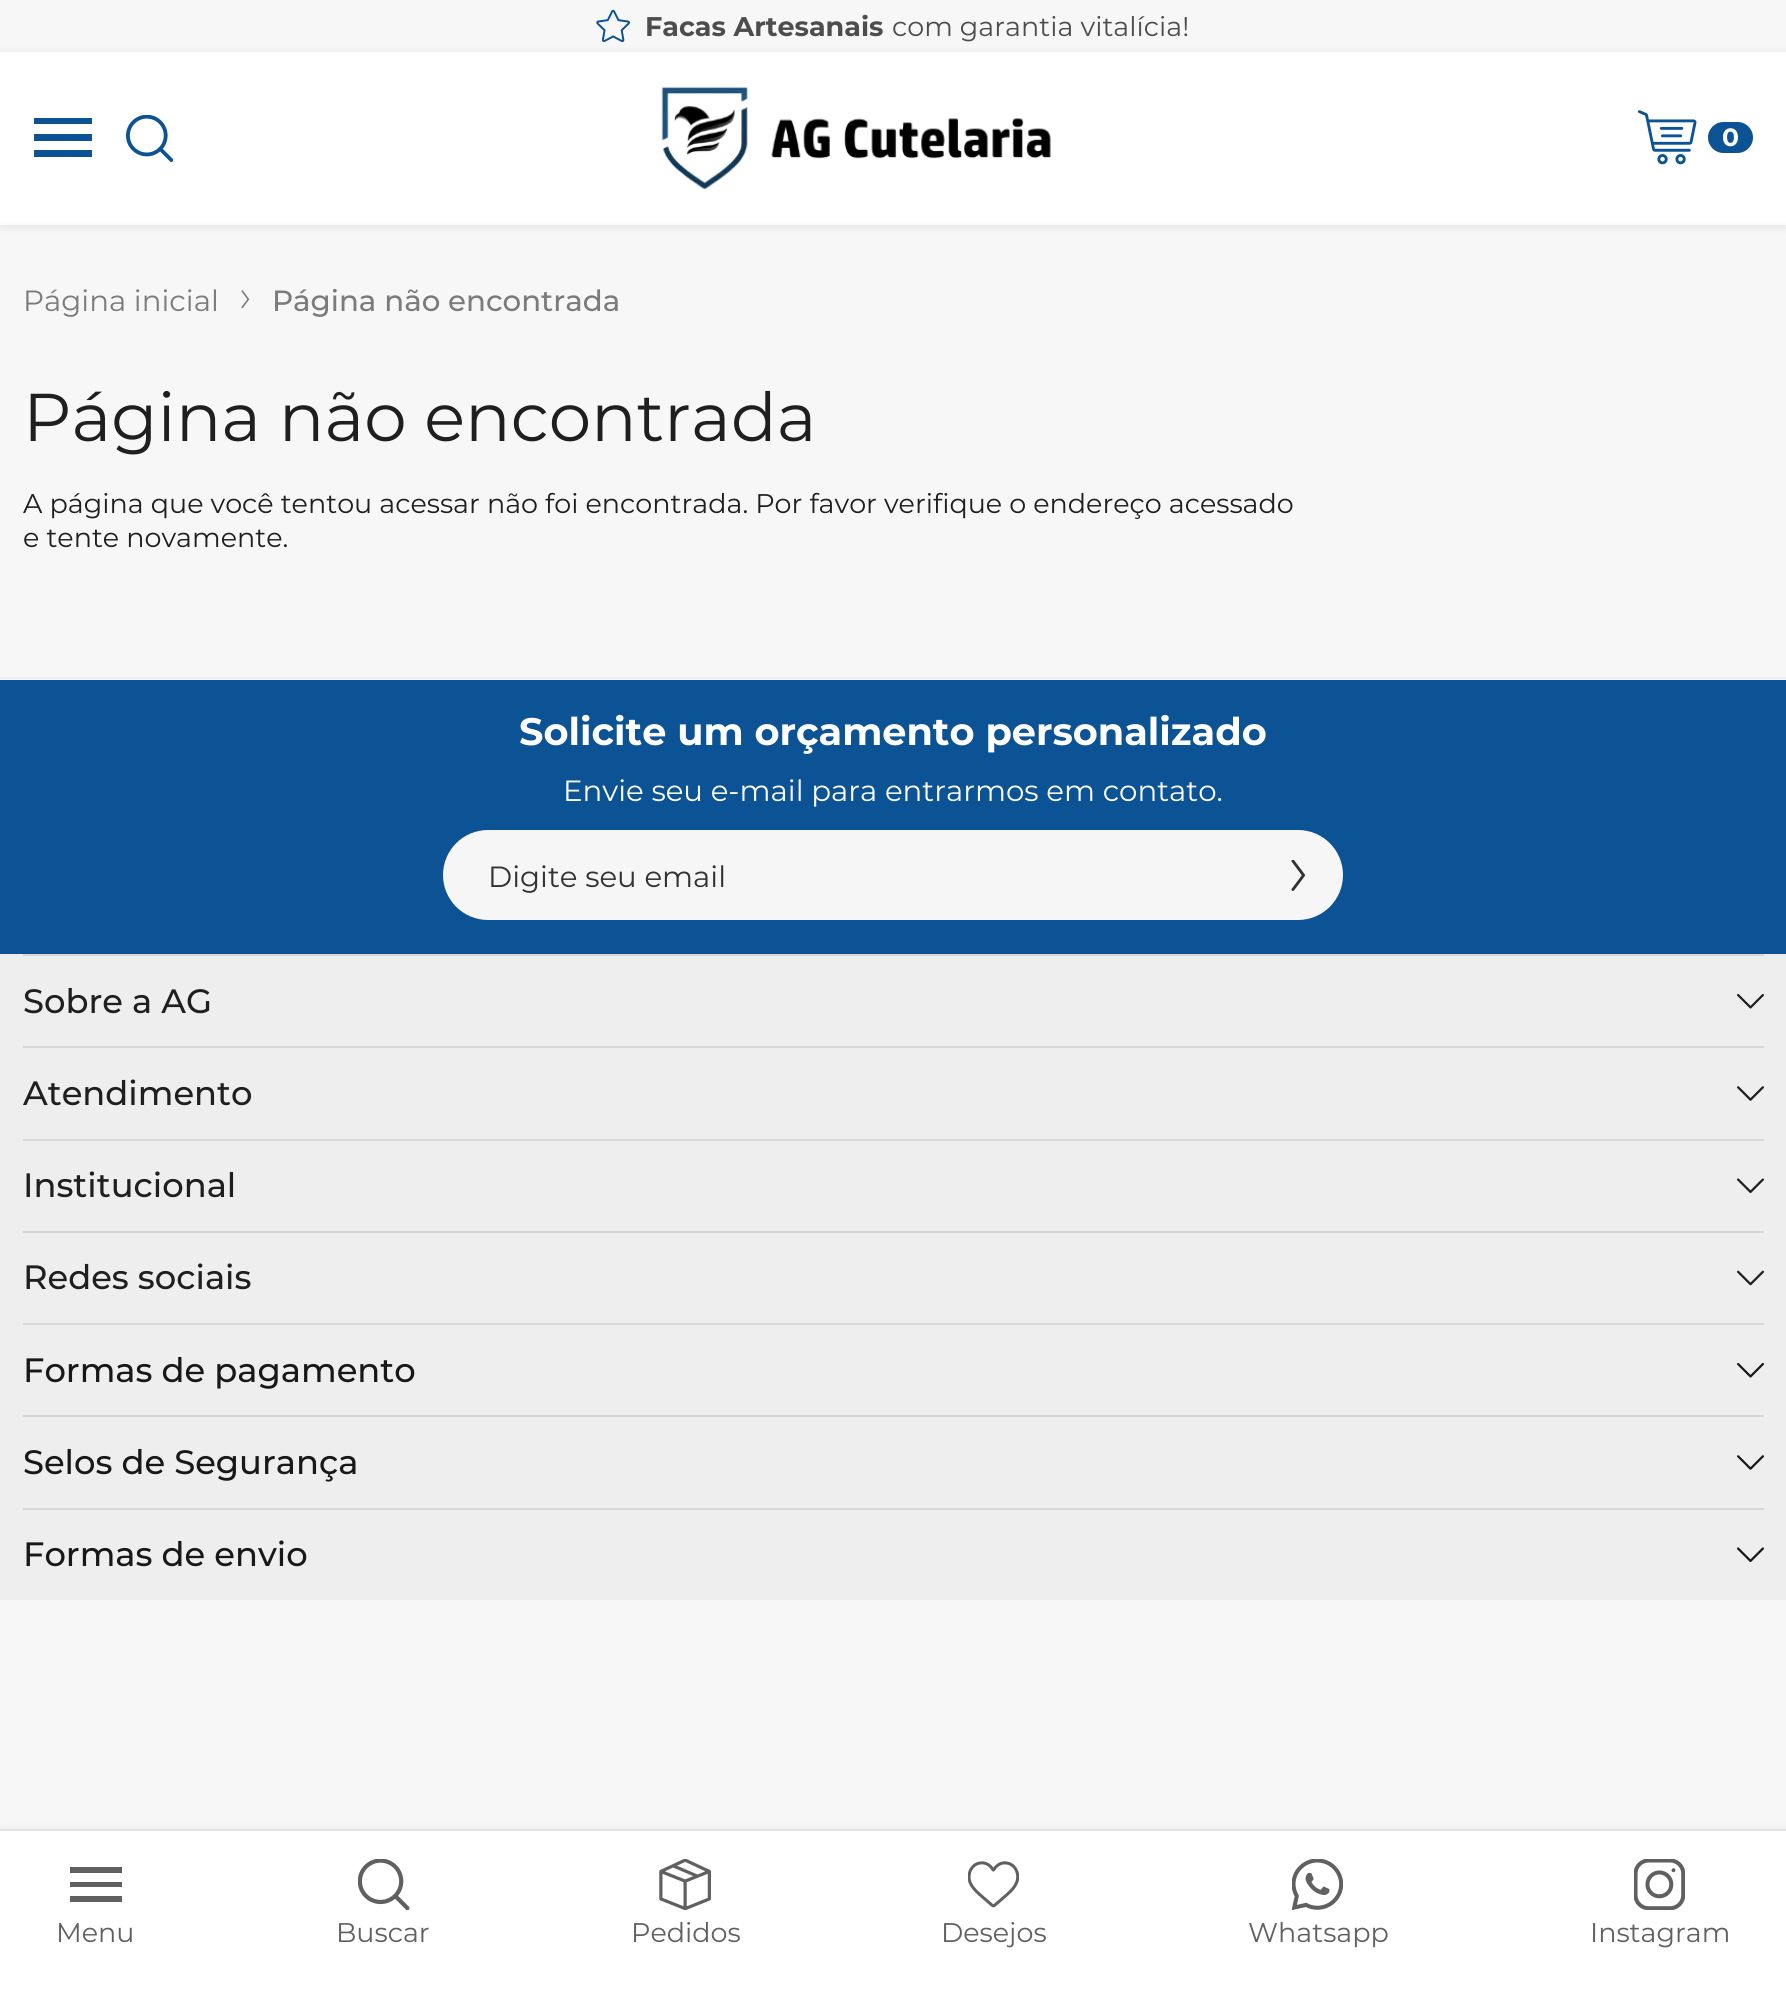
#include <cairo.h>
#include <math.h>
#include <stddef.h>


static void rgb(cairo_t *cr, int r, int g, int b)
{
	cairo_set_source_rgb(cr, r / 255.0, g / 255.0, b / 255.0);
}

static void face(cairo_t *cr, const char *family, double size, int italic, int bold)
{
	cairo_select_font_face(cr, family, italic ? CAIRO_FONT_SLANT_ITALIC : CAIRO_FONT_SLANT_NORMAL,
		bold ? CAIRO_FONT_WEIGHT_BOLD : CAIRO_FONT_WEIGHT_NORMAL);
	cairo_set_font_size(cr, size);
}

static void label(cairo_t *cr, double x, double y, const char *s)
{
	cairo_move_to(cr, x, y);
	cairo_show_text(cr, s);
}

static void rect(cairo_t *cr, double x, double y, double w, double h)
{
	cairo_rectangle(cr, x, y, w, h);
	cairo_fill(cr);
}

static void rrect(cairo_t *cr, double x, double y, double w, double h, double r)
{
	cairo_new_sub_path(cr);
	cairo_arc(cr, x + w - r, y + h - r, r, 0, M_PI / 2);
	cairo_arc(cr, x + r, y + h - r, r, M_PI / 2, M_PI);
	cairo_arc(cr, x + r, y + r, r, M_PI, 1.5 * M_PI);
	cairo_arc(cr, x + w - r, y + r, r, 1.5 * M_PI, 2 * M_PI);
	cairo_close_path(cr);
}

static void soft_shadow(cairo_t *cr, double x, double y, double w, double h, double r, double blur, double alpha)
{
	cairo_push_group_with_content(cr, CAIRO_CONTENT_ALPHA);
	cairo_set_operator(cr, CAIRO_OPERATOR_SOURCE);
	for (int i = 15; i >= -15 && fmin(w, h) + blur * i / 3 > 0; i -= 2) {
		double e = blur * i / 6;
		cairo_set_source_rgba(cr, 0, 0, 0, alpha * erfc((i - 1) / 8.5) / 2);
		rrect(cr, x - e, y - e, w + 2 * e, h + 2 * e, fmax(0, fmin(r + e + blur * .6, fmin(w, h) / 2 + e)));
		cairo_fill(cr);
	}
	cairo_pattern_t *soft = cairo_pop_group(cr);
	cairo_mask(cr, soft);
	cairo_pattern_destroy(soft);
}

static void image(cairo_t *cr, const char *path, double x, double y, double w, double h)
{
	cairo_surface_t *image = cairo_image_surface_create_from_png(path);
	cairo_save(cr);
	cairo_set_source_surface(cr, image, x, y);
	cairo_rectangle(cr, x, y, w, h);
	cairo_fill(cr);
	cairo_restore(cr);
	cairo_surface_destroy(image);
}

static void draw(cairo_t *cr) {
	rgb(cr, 247, 247, 247);
	cairo_paint(cr);
	image(cr, "image0.png", 596, 9, 34, 34);
	face(cr, "Montserrat", 27, 0, 1);
	rgb(cr, 77, 77, 77);
	label(cr, 645, 36, "Facas Artesanais");
	face(cr, "Montserrat", 27, 0, 0);
	label(cr, 892, 36, "com garantia vitalícia!");
	rgb(cr, 82, 82, 82);
	soft_shadow(cr, 0, 54, 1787, 173, 0, 4.5, 0.13);
	rgb(cr, 255, 255, 255);
	rect(cr, 0, 52, 1786, 171);
	rgb(cr, 252, 252, 252);
	rect(cr, 0, 223, 1786, 2);
	rgb(cr, 11, 83, 148);
	rect(cr, 34, 150, 58, 7);
	rect(cr, 34, 134, 58, 7);
	rect(cr, 34, 118, 58, 6);
	image(cr, "image1.png", 126, 115, 47, 47);
	image(cr, "image2.png", 661, 87, 390, 103);
	image(cr, "image3.png", 1638, 110, 59, 55);
	rrect(cr, 1708, 122, 45, 31, 15.5);
	cairo_fill(cr);
	face(cr, "Montserrat", 25, 0, 1);
	rgb(cr, 255, 255, 255);
	label(cr, 1722, 146, "0");
	face(cr, "Montserrat", 29.25, 0, 0);
	rgb(cr, 123, 123, 123);
	label(cr, 23, 311, "Página inicial");
	image(cr, "image4.png", 241, 290, 9, 18);
	face(cr, "Montserrat Medium", 29.25, 0, 0);
	label(cr, 272, 311, "Página não encontrada");
	face(cr, "Montserrat", 67.5, 0, 0);
	rgb(cr, 32, 31, 31);
	label(cr, 23, 441, "Página não encontrada");
	face(cr, "Montserrat", 27, 0, 0);
	label(cr, 23, 513, "A página que você tentou acessar não foi encontrada. Por favor verifique o endereço acessado");
	label(cr, 23, 547, "e tente novamente.");
	rgb(cr, 239, 239, 239);
	rect(cr, 0, 677, 1786, 2);
	rgb(cr, 11, 83, 148);
	rect(cr, 0, 680, 1786, 274);
	face(cr, "Montserrat", 38.25, 0, 1);
	rgb(cr, 255, 255, 255);
	label(cr, 519, 745, "Solicite um orçamento personalizado");
	face(cr, "Montserrat", 29.25, 0, 0);
	label(cr, 563, 801, "Envie seu e-mail para entrarmos em contato.");
	rgb(cr, 246, 246, 246);
	rrect(cr, 443, 830, 900, 90, 45);
	cairo_fill(cr);
	rgb(cr, 50, 50, 50);
	label(cr, 488, 887, "Digite seu email");
	image(cr, "image5.png", 1291, 860, 14, 31);
	rgb(cr, 238, 238, 238);
	rect(cr, 0, 954, 1786, 646);
	rgb(cr, 214, 214, 214);
	rect(cr, 23, 954, 1741, 2);
	face(cr, "Montserrat Medium", 33.75, 0, 0);
	rgb(cr, 32, 31, 31);
	label(cr, 23, 1013, "Sobre a AG");
	image(cr, "image6.png", 1737, 994, 27, 15);
	rgb(cr, 214, 214, 214);
	rect(cr, 23, 1046, 1741, 2);
	rgb(cr, 32, 31, 31);
	label(cr, 23, 1105, "Atendimento");
	image(cr, "image7.png", 1737, 1086, 27, 15);
	rgb(cr, 214, 214, 214);
	rect(cr, 23, 1139, 1741, 2);
	rgb(cr, 32, 31, 31);
	label(cr, 23, 1197, "Institucional");
	image(cr, "image8.png", 1737, 1178, 27, 15);
	rgb(cr, 214, 214, 214);
	rect(cr, 23, 1231, 1741, 2);
	rgb(cr, 32, 31, 31);
	label(cr, 23, 1289, "Redes sociais");
	image(cr, "image9.png", 1737, 1270, 27, 16);
	rgb(cr, 214, 214, 214);
	rect(cr, 23, 1323, 1741, 2);
	rgb(cr, 24, 24, 24);
	label(cr, 23, 1382, "Formas de pagamento");
	image(cr, "image10.png", 1737, 1363, 27, 15);
	rgb(cr, 214, 214, 214);
	rect(cr, 23, 1415, 1741, 2);
	rgb(cr, 24, 24, 24);
	label(cr, 23, 1474, "Selos de Segurança");
	image(cr, "image11.png", 1737, 1455, 27, 15);
	rgb(cr, 214, 214, 214);
	rect(cr, 23, 1508, 1741, 2);
	rgb(cr, 24, 24, 24);
	label(cr, 23, 1566, "Formas de envio");
	image(cr, "image12.png", 1737, 1547, 27, 15);
	rgb(cr, 82, 82, 82);
	soft_shadow(cr, 0, 1829, 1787, 160, 0, 4.5, 0.08);
	rgb(cr, 255, 255, 255);
	rect(cr, 0, 1831, 1786, 158);
	rgb(cr, 226, 226, 226);
	rect(cr, 0, 1829, 1786, 2);
	rgb(cr, 96, 96, 96);
	rect(cr, 70, 1896, 52, 6);
	rect(cr, 70, 1882, 52, 5);
	rect(cr, 70, 1867, 52, 6);
	face(cr, "Montserrat", 27, 0, 0);
	label(cr, 56, 1942, "Menu");
	image(cr, "image13.png", 358, 1859, 52, 51);
	label(cr, 336, 1942, "Buscar");
	image(cr, "image14.png", 659, 1859, 52, 51);
	label(cr, 631, 1942, "Pedidos");
	image(cr, "image15.png", 968, 1861, 51, 47);
	label(cr, 941, 1942, "Desejos");
	image(cr, "image16.png", 1292, 1859, 51, 51);
	label(cr, 1248, 1942, "Whatsapp");
	image(cr, "image17.png", 1634, 1859, 51, 51);
	label(cr, 1590, 1942, "Instagram");
}

int main(void) {
	cairo_surface_t *surface = cairo_image_surface_create(CAIRO_FORMAT_RGB24, 1786, 1989);
	cairo_t *cr = cairo_create(surface);
	cairo_font_options_t *options = cairo_font_options_create();
	cairo_font_options_set_hint_metrics(options, CAIRO_HINT_METRICS_OFF);
	cairo_font_options_set_hint_style(options, CAIRO_HINT_STYLE_NONE);
	cairo_set_font_options(cr, options);
	cairo_set_miter_limit(cr, 4);
	draw(cr);
	cairo_surface_write_to_png(surface, "render.png");
	cairo_font_options_destroy(options);
	cairo_destroy(cr);
	cairo_surface_destroy(surface);
	return 0;
}
